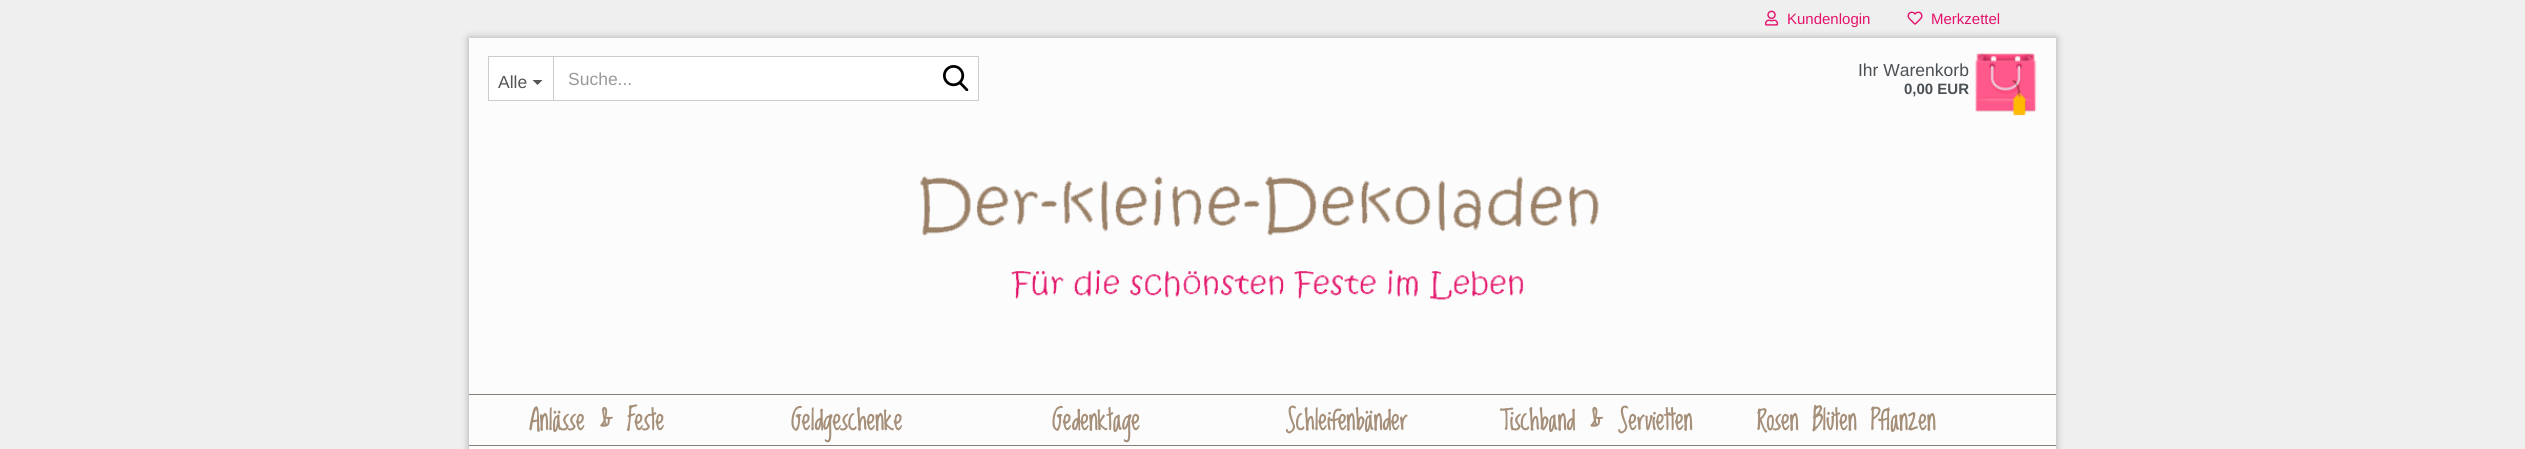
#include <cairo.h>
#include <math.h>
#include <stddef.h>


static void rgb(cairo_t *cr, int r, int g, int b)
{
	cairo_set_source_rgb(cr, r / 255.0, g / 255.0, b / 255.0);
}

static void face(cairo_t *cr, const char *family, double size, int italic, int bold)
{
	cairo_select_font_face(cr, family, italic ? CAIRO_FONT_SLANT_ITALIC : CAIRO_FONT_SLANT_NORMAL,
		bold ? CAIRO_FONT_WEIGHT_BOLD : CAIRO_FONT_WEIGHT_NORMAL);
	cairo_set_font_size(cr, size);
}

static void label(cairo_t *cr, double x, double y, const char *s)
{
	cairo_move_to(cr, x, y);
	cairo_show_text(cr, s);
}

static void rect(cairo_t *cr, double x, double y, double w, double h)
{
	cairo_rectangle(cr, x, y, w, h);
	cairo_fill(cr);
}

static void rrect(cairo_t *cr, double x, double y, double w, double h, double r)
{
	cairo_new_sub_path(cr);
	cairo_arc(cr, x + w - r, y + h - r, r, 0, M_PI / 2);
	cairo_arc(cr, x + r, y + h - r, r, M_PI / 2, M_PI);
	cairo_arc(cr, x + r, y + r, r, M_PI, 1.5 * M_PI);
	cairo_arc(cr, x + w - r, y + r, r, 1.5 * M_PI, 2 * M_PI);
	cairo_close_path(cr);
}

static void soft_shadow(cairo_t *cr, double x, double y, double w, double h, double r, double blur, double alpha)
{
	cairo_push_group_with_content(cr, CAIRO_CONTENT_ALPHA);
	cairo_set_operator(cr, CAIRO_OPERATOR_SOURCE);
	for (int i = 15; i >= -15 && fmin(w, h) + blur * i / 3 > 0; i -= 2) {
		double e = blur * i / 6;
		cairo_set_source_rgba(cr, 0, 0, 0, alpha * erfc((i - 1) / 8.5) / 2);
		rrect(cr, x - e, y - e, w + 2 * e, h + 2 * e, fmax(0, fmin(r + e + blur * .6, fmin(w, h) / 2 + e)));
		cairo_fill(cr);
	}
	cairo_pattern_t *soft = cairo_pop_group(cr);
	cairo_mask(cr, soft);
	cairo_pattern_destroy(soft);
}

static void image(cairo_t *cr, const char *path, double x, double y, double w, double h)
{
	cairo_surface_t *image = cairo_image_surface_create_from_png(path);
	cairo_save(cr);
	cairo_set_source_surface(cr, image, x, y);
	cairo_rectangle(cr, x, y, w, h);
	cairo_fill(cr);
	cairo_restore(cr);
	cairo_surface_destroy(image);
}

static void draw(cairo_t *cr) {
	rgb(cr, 240, 239, 239);
	cairo_paint(cr);
	rgb(cr, 0, 0, 0);
	soft_shadow(cr, 469, 38, 1587, 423, 0, 4, 0.3);
	rgb(cr, 252, 252, 252);
	rect(cr, 469, 38, 1587, 411);
	image(cr, "image0.png", 1765, 10, 14, 16);
	face(cr, "Liberation Sans", 15, 0, 0);
	rgb(cr, 227, 18, 107);
	label(cr, 1787, 24, "Kundenlogin");
	image(cr, "image1.png", 1907, 11, 16, 14);
	label(cr, 1931, 24, "Merkzettel");
	rgb(cr, 255, 255, 255);
	rect(cr, 489, 57, 64, 43);
	rgb(cr, 204, 204, 204);
	rect(cr, 488, 56, 65, 1);
	rect(cr, 488, 100, 65, 1);
	rect(cr, 488, 56, 1, 45);
	face(cr, "Liberation Sans", 17.5, 0, 0);
	rgb(cr, 85, 85, 85);
	label(cr, 498, 88, "Alle");
	cairo_new_path(cr);
	cairo_move_to(cr, 532.5, 80);
	cairo_line_to(cr, 542.5, 80);
	cairo_line_to(cr, 537.5, 85);
	cairo_close_path(cr);
	cairo_fill(cr);
	rgb(cr, 255, 255, 255);
	cairo_rectangle(cr, 553.5, 56.5, 425, 44);
	cairo_fill_preserve(cr);
	rgb(cr, 204, 204, 204);
	cairo_set_line_width(cr, 1);
	cairo_stroke(cr);
	rgb(cr, 153, 153, 153);
	label(cr, 568, 85, "Suche...");
	image(cr, "image2.png", 943, 65, 26, 26);
	image(cr, "image3.png", 1975, 53, 62, 63);
	rgb(cr, 75, 80, 85);
	label(cr, 1858, 76, "Ihr Warenkorb");
	face(cr, "Liberation Sans", 15, 0, 1);
	label(cr, 1904, 94, "0,00 EUR");
	image(cr, "image4.png", 920, 176, 679, 124);
	rgb(cr, 137, 126, 118);
	rect(cr, 469, 394, 1587, 1);
	rect(cr, 469, 445, 1587, 1);
	face(cr, "Loved by the King", 27.5, 0, 1);
	rgb(cr, 165, 143, 121);
	label(cr, 529, 430, "Anlässe & Feste");
	label(cr, 791, 430, "Geldgeschenke");
	label(cr, 1052, 430, "Gedenktage");
	label(cr, 1285, 430, "Schleifenbänder");
	label(cr, 1500, 430, "Tischband & Servietten");
	label(cr, 1757, 430, "Rosen Blüten Pflanzen");
}

int main(void) {
	cairo_surface_t *surface = cairo_image_surface_create(CAIRO_FORMAT_RGB24, 2525, 449);
	cairo_t *cr = cairo_create(surface);
	cairo_font_options_t *options = cairo_font_options_create();
	cairo_font_options_set_hint_metrics(options, CAIRO_HINT_METRICS_OFF);
	cairo_font_options_set_hint_style(options, CAIRO_HINT_STYLE_NONE);
	cairo_set_font_options(cr, options);
	cairo_set_miter_limit(cr, 4);
	draw(cr);
	cairo_surface_write_to_png(surface, "render.png");
	cairo_font_options_destroy(options);
	cairo_destroy(cr);
	cairo_surface_destroy(surface);
	return 0;
}
